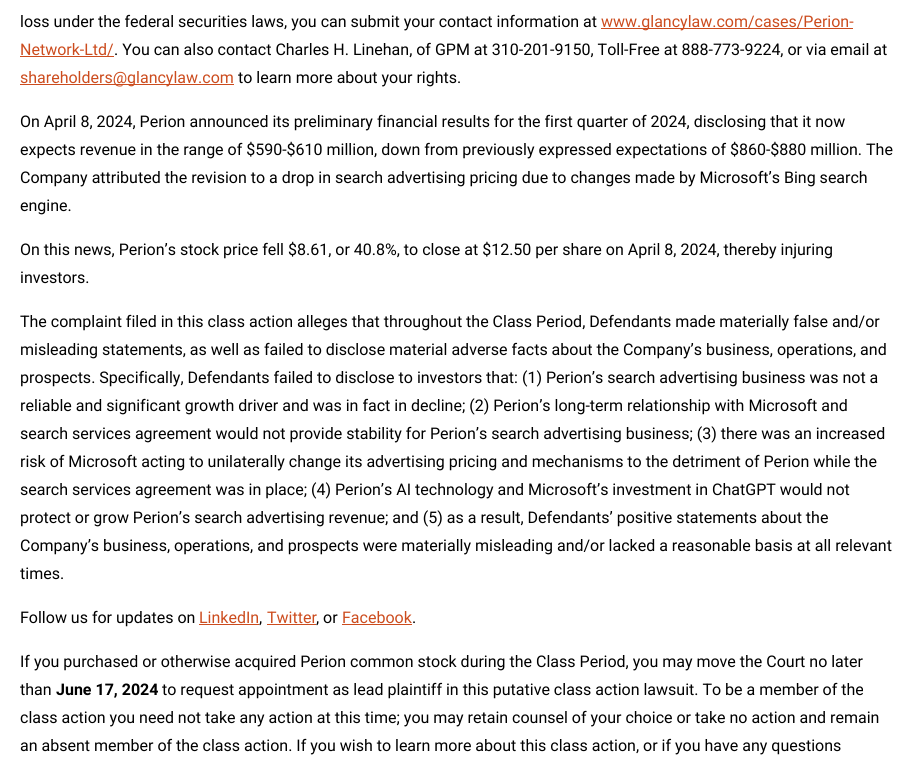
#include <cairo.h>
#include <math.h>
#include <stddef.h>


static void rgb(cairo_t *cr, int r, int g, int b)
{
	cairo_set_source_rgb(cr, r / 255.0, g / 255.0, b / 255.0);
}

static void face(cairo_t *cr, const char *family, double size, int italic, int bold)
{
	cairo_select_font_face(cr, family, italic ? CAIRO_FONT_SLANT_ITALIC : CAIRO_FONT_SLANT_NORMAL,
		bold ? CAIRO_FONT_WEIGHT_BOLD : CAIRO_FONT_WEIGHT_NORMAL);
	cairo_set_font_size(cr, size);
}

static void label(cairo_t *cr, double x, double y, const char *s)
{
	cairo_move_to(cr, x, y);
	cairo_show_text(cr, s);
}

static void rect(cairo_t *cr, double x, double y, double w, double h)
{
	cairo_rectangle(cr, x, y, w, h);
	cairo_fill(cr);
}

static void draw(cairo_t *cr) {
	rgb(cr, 255, 255, 255);
	cairo_paint(cr);
	face(cr, "Roboto", 16, 0, 0);
	rgb(cr, 0, 0, 0);
	label(cr, 20, 27, "loss under the federal securities laws, you can submit your contact information at");
	rgb(cr, 204, 76, 30);
	rect(cr, 601, 28, 252, 1);
	label(cr, 601, 27, "www.glancylaw.com/cases/Perion-");
	label(cr, 20, 55, "Network-Ltd/");
	rect(cr, 20, 56, 94, 1);
	rgb(cr, 0, 0, 0);
	label(cr, 114, 55, ". You can also contact Charles H. Linehan, of GPM at 310-201-9150, Toll-Free at 888-773-9224, or via email at");
	rgb(cr, 204, 76, 30);
	rect(cr, 20, 84, 214, 1);
	label(cr, 20, 83, "shareholders@glancylaw.com");
	rgb(cr, 0, 0, 0);
	label(cr, 238, 83, "to learn more about your rights.");
	label(cr, 20, 127, "On April 8, 2024, Perion announced its preliminary financial results for the first quarter of 2024, disclosing that it now");
	label(cr, 20, 155, "expects revenue in the range of $590-$610 million, down from previously expressed expectations of $860-$880 million. The");
	label(cr, 20, 183, "Company attributed the revision to a drop in search advertising pricing due to changes made by Microsoft’s Bing search");
	label(cr, 20, 211, "engine.");
	label(cr, 20, 255, "On this news, Perion’s stock price fell $8.61, or 40.8%, to close at $12.50 per share on April 8, 2024, thereby injuring");
	label(cr, 20, 283, "investors.");
	label(cr, 20, 327, "The complaint filed in this class action alleges that throughout the Class Period, Defendants made materially false and/or");
	label(cr, 20, 355, "misleading statements, as well as failed to disclose material adverse facts about the Company’s business, operations, and");
	label(cr, 20, 383, "prospects. Specifically, Defendants failed to disclose to investors that: (1) Perion’s search advertising business was not a");
	label(cr, 20, 411, "reliable and significant growth driver and was in fact in decline; (2) Perion’s long-term relationship with Microsoft and");
	label(cr, 20, 439, "search services agreement would not provide stability for Perion’s search advertising business; (3) there was an increased");
	label(cr, 20, 467, "risk of Microsoft acting to unilaterally change its advertising pricing and mechanisms to the detriment of Perion while the");
	label(cr, 20, 495, "search services agreement was in place; (4) Perion’s AI technology and Microsoft’s investment in ChatGPT would not");
	label(cr, 20, 523, "protect or grow Perion’s search advertising revenue; and (5) as a result, Defendants’ positive statements about the");
	label(cr, 20, 551, "Company’s business, operations, and prospects were materially misleading and/or lacked a reasonable basis at all relevant");
	label(cr, 20, 579, "times.");
	label(cr, 20, 623, "Follow us for updates on");
	rgb(cr, 204, 76, 30);
	label(cr, 199, 623, "LinkedIn");
	rect(cr, 199, 624, 60, 1);
	rgb(cr, 0, 0, 0);
	label(cr, 259, 623, ",");
	rgb(cr, 204, 76, 30);
	label(cr, 267, 623, "Twitter");
	rect(cr, 267, 624, 49, 1);
	rgb(cr, 0, 0, 0);
	label(cr, 316, 623, ", or");
	rgb(cr, 204, 76, 30);
	label(cr, 342, 623, "Facebook");
	rect(cr, 342, 624, 70, 1);
	rgb(cr, 0, 0, 0);
	label(cr, 412, 623, ".");
	label(cr, 20, 667, "If you purchased or otherwise acquired Perion common stock during the Class Period, you may move the Court no later");
	label(cr, 20, 695, "than");
	face(cr, "Roboto", 16, 0, 1);
	label(cr, 56, 695, "June 17, 2024");
	face(cr, "Roboto", 16, 0, 0);
	label(cr, 162, 695, "to request appointment as lead plaintiff in this putative class action lawsuit. To be a member of the");
	label(cr, 20, 723, "class action you need not take any action at this time; you may retain counsel of your choice or take no action and remain");
	label(cr, 20, 751, "an absent member of the class action. If you wish to learn more about this class action, or if you have any questions");
}

int main(void) {
	cairo_surface_t *surface = cairo_image_surface_create(CAIRO_FORMAT_RGB24, 915, 768);
	cairo_t *cr = cairo_create(surface);
	cairo_font_options_t *options = cairo_font_options_create();
	cairo_font_options_set_hint_metrics(options, CAIRO_HINT_METRICS_OFF);
	cairo_font_options_set_hint_style(options, CAIRO_HINT_STYLE_NONE);
	cairo_set_font_options(cr, options);
	cairo_set_miter_limit(cr, 4);
	draw(cr);
	cairo_surface_write_to_png(surface, "render.png");
	cairo_font_options_destroy(options);
	cairo_destroy(cr);
	cairo_surface_destroy(surface);
	return 0;
}
